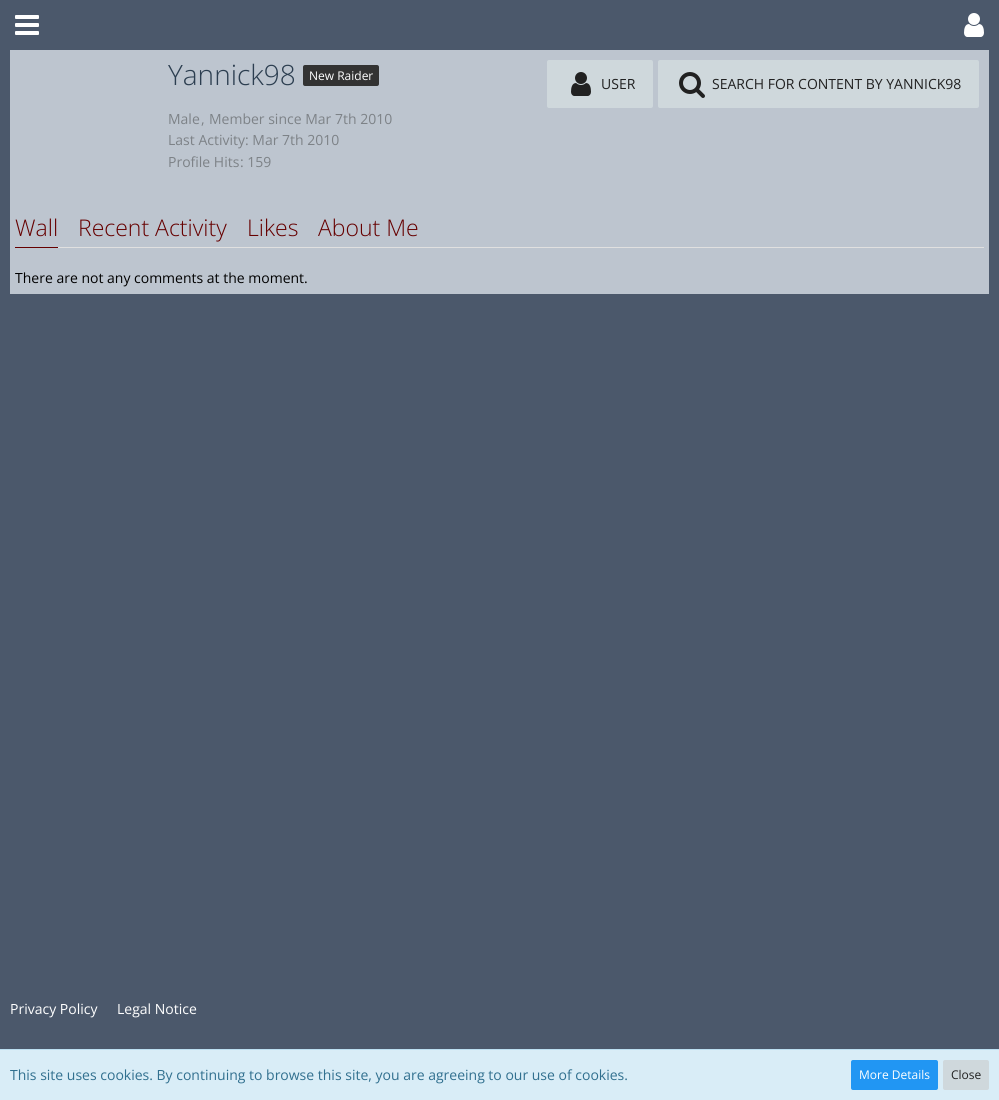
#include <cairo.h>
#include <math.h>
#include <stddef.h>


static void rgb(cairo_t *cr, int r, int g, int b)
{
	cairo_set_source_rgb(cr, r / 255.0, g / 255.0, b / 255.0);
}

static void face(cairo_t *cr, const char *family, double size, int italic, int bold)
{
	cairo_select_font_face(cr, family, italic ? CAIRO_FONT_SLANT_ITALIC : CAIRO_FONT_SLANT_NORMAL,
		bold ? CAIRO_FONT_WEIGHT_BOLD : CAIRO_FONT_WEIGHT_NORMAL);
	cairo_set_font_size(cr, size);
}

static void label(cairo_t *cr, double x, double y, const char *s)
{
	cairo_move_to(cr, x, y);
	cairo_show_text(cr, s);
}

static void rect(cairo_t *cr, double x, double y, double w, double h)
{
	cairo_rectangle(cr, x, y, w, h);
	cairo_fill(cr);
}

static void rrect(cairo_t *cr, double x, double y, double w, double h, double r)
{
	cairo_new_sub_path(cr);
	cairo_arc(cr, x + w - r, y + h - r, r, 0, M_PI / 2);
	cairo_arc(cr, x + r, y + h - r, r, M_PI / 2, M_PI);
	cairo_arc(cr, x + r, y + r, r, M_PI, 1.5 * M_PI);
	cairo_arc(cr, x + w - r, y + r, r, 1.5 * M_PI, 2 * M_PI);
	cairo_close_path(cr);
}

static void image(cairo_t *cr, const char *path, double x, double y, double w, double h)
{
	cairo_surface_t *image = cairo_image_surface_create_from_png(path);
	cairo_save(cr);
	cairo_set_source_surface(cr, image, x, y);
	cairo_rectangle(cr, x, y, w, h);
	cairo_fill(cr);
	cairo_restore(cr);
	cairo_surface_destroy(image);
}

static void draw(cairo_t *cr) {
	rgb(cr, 75, 88, 107);
	cairo_paint(cr);
	image(cr, "image0.png", 15, 15, 24, 20);
	image(cr, "image1.png", 964, 13, 20, 24);
	rgb(cr, 189, 197, 207);
	rect(cr, 10, 50, 979, 244);
	face(cr, "Open Sans Light", 28, 0, 0);
	rgb(cr, 44, 62, 80);
	label(cr, 168, 85, "Yannick98");
	rgb(cr, 51, 51, 51);
	rrect(cr, 303, 65, 76, 21, 2);
	cairo_fill(cr);
	face(cr, "Open Sans", 12, 0, 0);
	rgb(cr, 255, 255, 255);
	label(cr, 309, 80, "New Raider");
	face(cr, "Open Sans", 14, 0, 0);
	rgb(cr, 125, 130, 135);
	label(cr, 168, 124, "Male");
	label(cr, 201, 124, ",");
	label(cr, 209, 124, "Member since Mar 7th 2010");
	label(cr, 168, 145, "Last Activity: Mar 7th 2010");
	label(cr, 168, 167, "Profile Hits");
	label(cr, 240, 167, ": 159");
	rgb(cr, 207, 216, 220);
	rrect(cr, 547, 60, 106, 48, 2);
	cairo_fill(cr);
	image(cr, "image2.png", 571, 72, 20, 24);
	rgb(cr, 33, 33, 33);
	label(cr, 601, 89, "USER");
	rgb(cr, 207, 216, 220);
	rrect(cr, 658, 60, 321, 48, 2);
	cairo_fill(cr);
	image(cr, "image3.png", 679, 72, 26, 26);
	rgb(cr, 33, 33, 33);
	label(cr, 712, 89, "SEARCH FOR CONTENT BY YANNICK98");
	rgb(cr, 224, 224, 224);
	rect(cr, 58, 247, 926, 1);
	face(cr, "Open Sans Light", 23, 0, 0);
	rgb(cr, 102, 0, 0);
	label(cr, 15, 236, "Wall");
	rect(cr, 15, 247, 43, 1);
	label(cr, 78, 236, "Recent Activity");
	label(cr, 247, 236, "Likes");
	label(cr, 318, 236, "About Me");
	face(cr, "Open Sans", 14, 0, 0);
	rgb(cr, 0, 0, 0);
	label(cr, 15, 283, "There are not any comments at the moment.");
	rgb(cr, 255, 255, 255);
	label(cr, 10, 1014, "Privacy Policy");
	label(cr, 117, 1014, "Legal Notice");
	rgb(cr, 217, 237, 247);
	rect(cr, 0, 1050, 999, 50);
	rgb(cr, 188, 223, 241);
	rect(cr, 0, 1049, 999, 1);
	rgb(cr, 49, 112, 143);
	label(cr, 10, 1080, "This site uses cookies. By continuing to browse this site, you are agreeing to our use of cookies.");
	rgb(cr, 33, 150, 243);
	rrect(cr, 851, 1060, 87, 30, 2);
	cairo_fill(cr);
	face(cr, "Open Sans", 12, 0, 0);
	rgb(cr, 255, 255, 255);
	label(cr, 859, 1079, "More Details");
	rgb(cr, 207, 216, 220);
	rrect(cr, 943, 1060, 46, 30, 2);
	cairo_fill(cr);
	rgb(cr, 33, 33, 33);
	label(cr, 951, 1079, "Close");
}

int main(void) {
	cairo_surface_t *surface = cairo_image_surface_create(CAIRO_FORMAT_RGB24, 999, 1100);
	cairo_t *cr = cairo_create(surface);
	cairo_font_options_t *options = cairo_font_options_create();
	cairo_font_options_set_hint_metrics(options, CAIRO_HINT_METRICS_OFF);
	cairo_font_options_set_hint_style(options, CAIRO_HINT_STYLE_NONE);
	cairo_set_font_options(cr, options);
	cairo_set_miter_limit(cr, 4);
	draw(cr);
	cairo_surface_write_to_png(surface, "render.png");
	cairo_font_options_destroy(options);
	cairo_destroy(cr);
	cairo_surface_destroy(surface);
	return 0;
}
